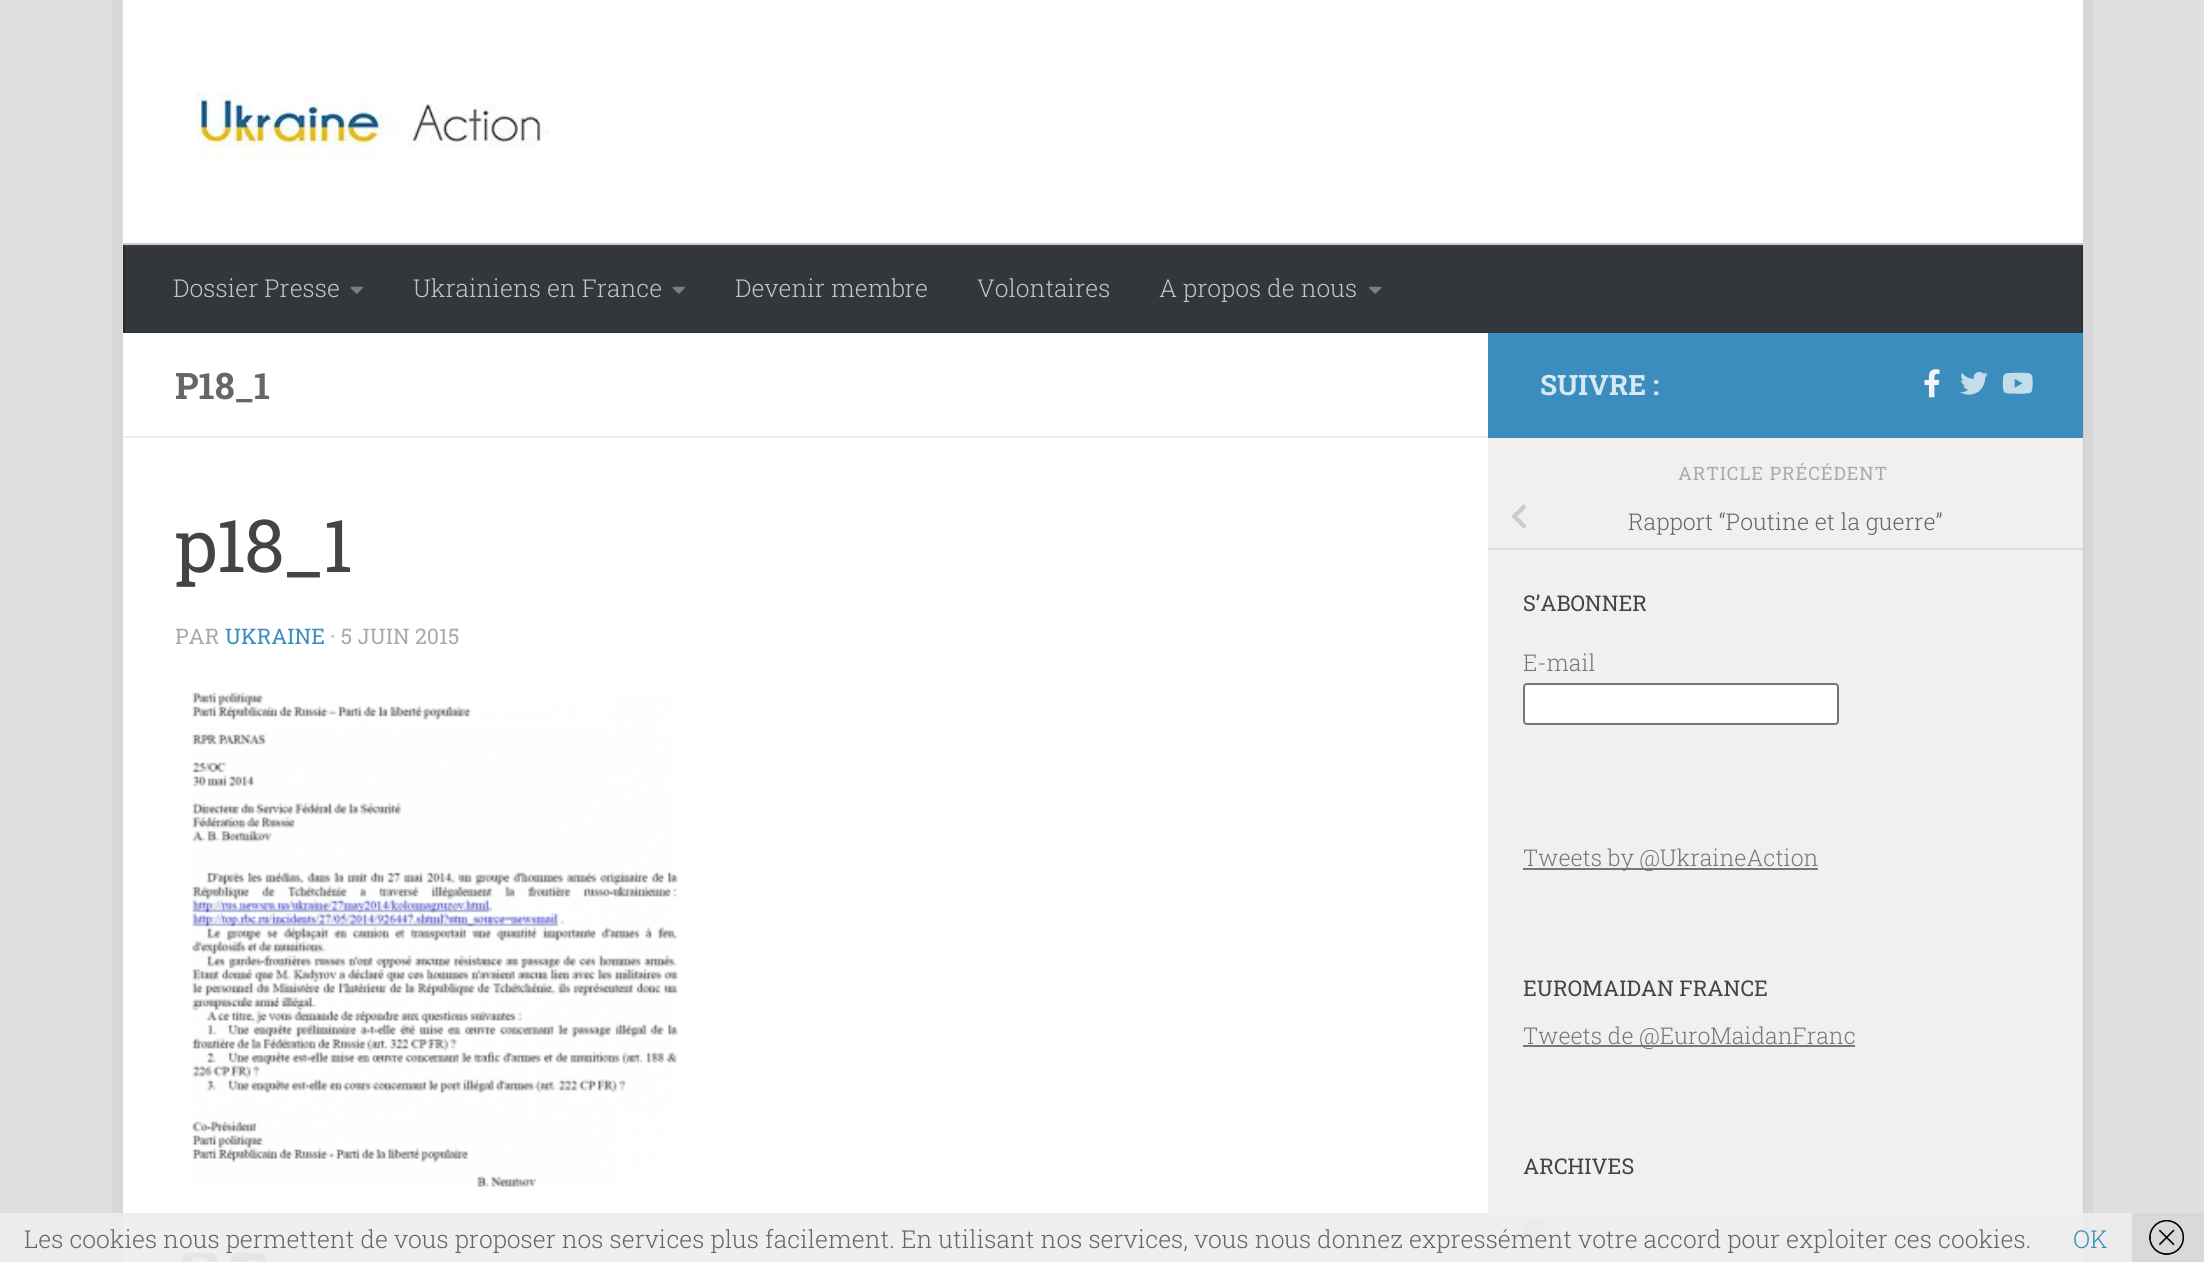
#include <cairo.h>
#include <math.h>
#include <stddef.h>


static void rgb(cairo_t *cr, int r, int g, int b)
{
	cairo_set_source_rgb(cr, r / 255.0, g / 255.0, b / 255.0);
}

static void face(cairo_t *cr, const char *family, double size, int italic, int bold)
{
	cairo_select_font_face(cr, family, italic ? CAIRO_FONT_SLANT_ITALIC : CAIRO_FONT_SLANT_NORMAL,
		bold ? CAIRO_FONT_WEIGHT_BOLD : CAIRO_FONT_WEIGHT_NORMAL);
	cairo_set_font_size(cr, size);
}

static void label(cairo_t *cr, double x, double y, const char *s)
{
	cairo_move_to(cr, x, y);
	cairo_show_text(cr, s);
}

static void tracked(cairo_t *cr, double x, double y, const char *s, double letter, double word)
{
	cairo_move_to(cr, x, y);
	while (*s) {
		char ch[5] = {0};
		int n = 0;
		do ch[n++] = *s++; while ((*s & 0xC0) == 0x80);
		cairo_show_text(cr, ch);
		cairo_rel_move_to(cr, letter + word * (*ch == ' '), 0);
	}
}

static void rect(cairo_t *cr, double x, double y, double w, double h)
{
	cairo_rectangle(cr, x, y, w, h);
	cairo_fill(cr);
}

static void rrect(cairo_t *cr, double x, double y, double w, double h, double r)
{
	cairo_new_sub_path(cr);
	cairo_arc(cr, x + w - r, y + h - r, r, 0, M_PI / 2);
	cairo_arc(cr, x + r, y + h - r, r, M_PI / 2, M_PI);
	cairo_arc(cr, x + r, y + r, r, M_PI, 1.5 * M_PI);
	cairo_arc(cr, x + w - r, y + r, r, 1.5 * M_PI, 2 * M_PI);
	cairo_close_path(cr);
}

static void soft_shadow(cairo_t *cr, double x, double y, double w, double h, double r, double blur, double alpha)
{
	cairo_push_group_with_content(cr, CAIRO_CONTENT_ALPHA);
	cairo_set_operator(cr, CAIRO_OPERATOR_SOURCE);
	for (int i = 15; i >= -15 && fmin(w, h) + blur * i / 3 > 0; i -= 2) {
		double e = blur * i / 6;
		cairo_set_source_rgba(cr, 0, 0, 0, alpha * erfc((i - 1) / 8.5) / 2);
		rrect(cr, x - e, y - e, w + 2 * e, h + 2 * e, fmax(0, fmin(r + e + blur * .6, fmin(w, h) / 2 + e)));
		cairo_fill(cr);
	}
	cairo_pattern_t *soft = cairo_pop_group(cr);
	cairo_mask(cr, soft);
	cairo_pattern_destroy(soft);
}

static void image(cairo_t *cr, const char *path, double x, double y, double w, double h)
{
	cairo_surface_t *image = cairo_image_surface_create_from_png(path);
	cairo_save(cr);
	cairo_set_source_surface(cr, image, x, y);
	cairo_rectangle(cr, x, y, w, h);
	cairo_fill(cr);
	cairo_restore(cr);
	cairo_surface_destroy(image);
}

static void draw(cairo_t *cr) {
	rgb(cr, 224, 224, 224);
	cairo_paint(cr);
	rgb(cr, 215, 215, 215);
	cairo_new_path(cr);
	cairo_move_to(cr, 112, 0);
	cairo_line_to(cr, 112, 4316);
	cairo_line_to(cr, 2072, 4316);
	cairo_line_to(cr, 122, 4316);
	cairo_line_to(cr, 122, 0);
	cairo_close_path(cr);
	cairo_fill(cr);
	cairo_new_path(cr);
	cairo_move_to(cr, 133, 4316);
	cairo_line_to(cr, 2093, 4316);
	cairo_line_to(cr, 2093, 0);
	cairo_line_to(cr, 2082, 0);
	cairo_line_to(cr, 2082, 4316);
	cairo_close_path(cr);
	cairo_fill(cr);
	rgb(cr, 0, 0, 0);
	soft_shadow(cr, 123, 334, 1960, 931, 0, 1, 0.1);
	rgb(cr, 255, 255, 255);
	rect(cr, 123, 0, 1960, 436);
	image(cr, "image0.png", 196, 92, 353, 67);
	rgb(cr, 204, 204, 204);
	cairo_new_path(cr);
	cairo_move_to(cr, 123, 243);
	cairo_line_to(cr, 123, 245);
	cairo_line_to(cr, 2082, 245);
	cairo_line_to(cr, 2082, 331);
	cairo_line_to(cr, 2083, 331);
	cairo_line_to(cr, 2083, 243);
	cairo_close_path(cr);
	cairo_fill(cr);
	rgb(cr, 51, 54, 59);
	rect(cr, 125, 245, 1956, 88);
	rgb(cr, 41, 43, 47);
	rect(cr, 2081, 245, 2, 88);
	rect(cr, 123, 245, 2, 88);
	cairo_set_source_rgba(cr, 1, 1, 1, 0.05);
	rect(cr, 123, 245, 1960, 2);
	face(cr, "Roboto Slab Light", 24.65, 0, 0);
	rgb(cr, 194, 195, 196);
	label(cr, 173, 297, "Dossier Presse");
	image(cr, "image1.png", 350, 286, 13, 8);
	label(cr, 413, 297, "Ukrainiens en France");
	image(cr, "image1.png", 672, 286, 13, 8);
	label(cr, 735, 297, "Devenir membre");
	label(cr, 977, 297, "Volontaires");
	label(cr, 1159, 297, "A propos de nous");
	image(cr, "image2.png", 1369, 286, 13, 8);
	rgb(cr, 255, 255, 255);
	rect(cr, 123, 438, 1365, 824);
	rgb(cr, 238, 238, 238);
	rect(cr, 123, 436, 1365, 2);
	face(cr, "Roboto Slab", 36.5, 0, 1);
	rgb(cr, 102, 102, 102);
	label(cr, 175, 399, "P18_1");
	face(cr, "Roboto Slab", 73, 0, 0);
	rgb(cr, 68, 68, 68);
	tracked(cr, 175, 572, "p18_1", -1.75, 0);
	face(cr, "Roboto Slab", 21.5, 0, 0);
	rgb(cr, 170, 170, 170);
	label(cr, 175, 644, "PAR");
	rgb(cr, 59, 141, 189);
	label(cr, 225, 644, "UKRAINE");
	rgb(cr, 170, 170, 170);
	label(cr, 330, 644, "· 5 JUIN 2015");
	image(cr, "image3.png", 192, 692, 486, 495);
	rgb(cr, 158, 158, 158);
	rrect(cr, 182, 1253, 35, 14, 5);
	cairo_fill(cr);
	image(cr, "image4.png", 189, 1257, 21, 5);
	rrect(cr, 231, 1253, 35, 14, 5);
	cairo_fill(cr);
	image(cr, "image5.png", 236, 1259, 25, 3);
	rgb(cr, 59, 141, 189);
	rect(cr, 1488, 333, 595, 105);
	face(cr, "Roboto Slab", 28, 0, 1);
	rgb(cr, 216, 232, 242);
	label(cr, 1540, 395, "SUIVRE :");
	image(cr, "image6.png", 1924, 369, 16, 29);
	image(cr, "image7.png", 1960, 371, 28, 24);
	image(cr, "image8.png", 2002, 372, 31, 22);
	rgb(cr, 240, 240, 240);
	rect(cr, 1488, 438, 595, 824);
	face(cr, "Roboto Slab", 18.5, 0, 0);
	rgb(cr, 170, 170, 170);
	tracked(cr, 1678, 480, "ARTICLE PRÉCÉDENT", 0.9, 0);
	rgb(cr, 221, 221, 221);
	rect(cr, 1488, 548, 595, 2);
	image(cr, "image9.png", 1511, 504, 15, 24);
	face(cr, "Roboto Slab Light", 23.1, 0, 0);
	rgb(cr, 102, 102, 102);
	label(cr, 1628, 530, "Rapport “Poutine et la guerre”");
	face(cr, "Roboto Slab", 21.7, 0, 0);
	rgb(cr, 68, 68, 68);
	label(cr, 1523, 611, "S’ABONNER");
	face(cr, "Roboto Slab Light", 23.1, 0, 0);
	rgb(cr, 119, 119, 119);
	label(cr, 1523, 671, "E-mail");
	rgb(cr, 255, 255, 255);
	rrect(cr, 1524, 684, 314, 40, 3);
	cairo_fill_preserve(cr);
	rgb(cr, 118, 118, 118);
	cairo_stroke(cr);
	rgb(cr, 119, 119, 119);
	rect(cr, 1523, 868, 295, 2);
	label(cr, 1523, 866, "Tweets by @UkraineAction");
	face(cr, "Roboto Slab", 21.7, 0, 0);
	rgb(cr, 68, 68, 68);
	label(cr, 1523, 996, "EUROMAIDAN FRANCE");
	rgb(cr, 119, 119, 119);
	rect(cr, 1523, 1045, 332, 2);
	face(cr, "Roboto Slab Light", 23.1, 0, 0);
	label(cr, 1523, 1044, "Tweets de @EuroMaidanFranc");
	face(cr, "Roboto Slab", 21.7, 0, 0);
	rgb(cr, 68, 68, 68);
	label(cr, 1523, 1174, "ARCHIVES");
	image(cr, "image10.png", 1524, 1218, 19, 22);
	cairo_set_source_rgba(cr, 0.933, 0.933, 0.933, 0.9);
	rect(cr, 0, 1213, 2132, 49);
	face(cr, "Roboto Slab Light", 24.65, 0, 0);
	rgb(cr, 102, 102, 102);
	label(cr, 24, 1248, "Les cookies nous permettent de vous proposer nos services plus facilement. En utilisant nos services, vous nous donnez expressément votre accord pour exploiter ces cookies.");
	rgb(cr, 59, 141, 189);
	label(cr, 2073, 1248, "OK");
	rgb(cr, 217, 217, 217);
	rect(cr, 2132, 1213, 72, 49);
	image(cr, "image11.png", 2149, 1220, 35, 35);
}

int main(void) {
	cairo_surface_t *surface = cairo_image_surface_create(CAIRO_FORMAT_RGB24, 2204, 1262);
	cairo_t *cr = cairo_create(surface);
	cairo_font_options_t *options = cairo_font_options_create();
	cairo_font_options_set_hint_metrics(options, CAIRO_HINT_METRICS_OFF);
	cairo_font_options_set_hint_style(options, CAIRO_HINT_STYLE_NONE);
	cairo_set_font_options(cr, options);
	cairo_set_miter_limit(cr, 4);
	draw(cr);
	cairo_surface_write_to_png(surface, "render.png");
	cairo_font_options_destroy(options);
	cairo_destroy(cr);
	cairo_surface_destroy(surface);
	return 0;
}
